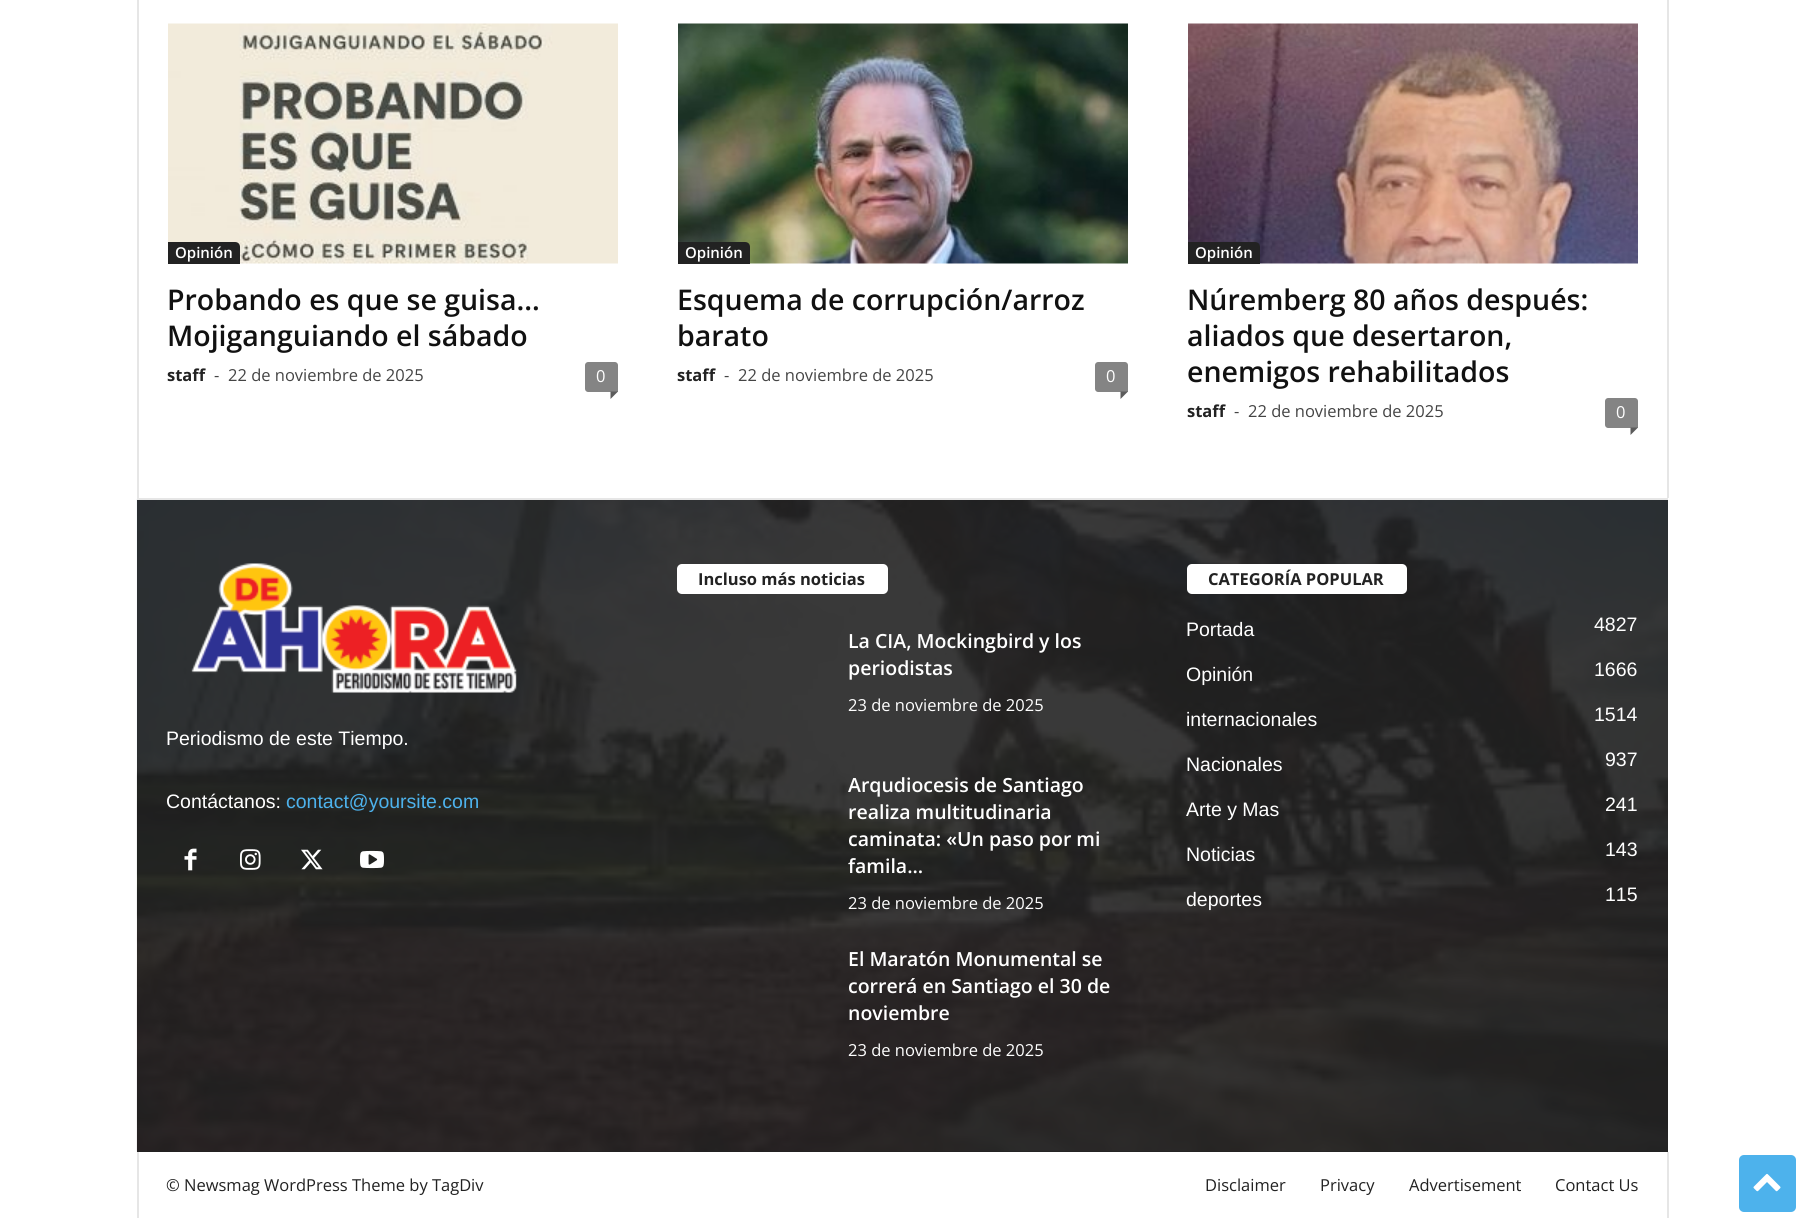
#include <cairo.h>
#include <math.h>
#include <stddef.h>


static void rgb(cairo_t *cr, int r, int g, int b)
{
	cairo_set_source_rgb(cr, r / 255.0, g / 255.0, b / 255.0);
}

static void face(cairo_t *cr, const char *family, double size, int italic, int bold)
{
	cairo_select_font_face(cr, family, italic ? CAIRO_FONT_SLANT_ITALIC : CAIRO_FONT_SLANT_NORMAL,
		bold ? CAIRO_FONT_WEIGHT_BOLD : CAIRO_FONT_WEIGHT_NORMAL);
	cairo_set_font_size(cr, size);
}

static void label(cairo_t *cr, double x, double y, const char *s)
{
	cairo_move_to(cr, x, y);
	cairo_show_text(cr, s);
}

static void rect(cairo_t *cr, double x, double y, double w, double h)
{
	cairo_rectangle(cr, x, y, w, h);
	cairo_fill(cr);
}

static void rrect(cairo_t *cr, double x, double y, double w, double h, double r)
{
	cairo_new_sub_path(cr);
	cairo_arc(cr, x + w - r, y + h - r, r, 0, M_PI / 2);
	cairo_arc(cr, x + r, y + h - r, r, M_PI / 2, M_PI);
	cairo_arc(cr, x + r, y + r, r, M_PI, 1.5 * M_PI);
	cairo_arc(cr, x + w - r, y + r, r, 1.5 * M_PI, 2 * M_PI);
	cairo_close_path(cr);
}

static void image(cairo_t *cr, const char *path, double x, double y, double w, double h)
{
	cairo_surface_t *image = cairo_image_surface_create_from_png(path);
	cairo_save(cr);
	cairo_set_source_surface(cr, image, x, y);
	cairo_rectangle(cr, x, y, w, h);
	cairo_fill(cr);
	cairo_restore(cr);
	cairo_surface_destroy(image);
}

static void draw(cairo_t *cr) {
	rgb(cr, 255, 255, 255);
	cairo_paint(cr);
	rgb(cr, 34, 34, 34);
	rect(cr, 137, 500, 1531, 652);
	image(cr, "image3.png", 136, 499, 1532, 653);
	rgb(cr, 230, 230, 230);
	rect(cr, 137, 498, 1531, 2);
	rect(cr, 137, 0, 2, 498);
	image(cr, "image0.png", 168, 23, 450, 241);
	rgb(cr, 34, 34, 34);
	cairo_new_path(cr);
	cairo_move_to(cr, 168, 242);
	cairo_line_to(cr, 235, 242);
	cairo_curve_to(cr, 238, 242, 240, 244, 240, 247);
	cairo_line_to(cr, 240, 264);
	cairo_line_to(cr, 168, 264);
	cairo_close_path(cr);
	cairo_fill(cr);
	face(cr, "Open Sans SemiBold", 15, 0, 0);
	rgb(cr, 255, 255, 255);
	label(cr, 175, 258, "Opinión");
	face(cr, "Open Sans SemiBold", 28.5, 0, 0);
	rgb(cr, 17, 17, 17);
	label(cr, 167, 310, "Probando es que se guisa…");
	label(cr, 167, 346, "Mojiganguiando el sábado");
	face(cr, "Open Sans", 16.5, 0, 1);
	rgb(cr, 34, 34, 34);
	label(cr, 167, 381, "staff");
	face(cr, "Open Sans", 16.5, 0, 0);
	rgb(cr, 68, 68, 68);
	label(cr, 214, 381, "-");
	label(cr, 228, 381, "22 de noviembre de 2025");
	rgb(cr, 132, 132, 132);
	cairo_new_path(cr);
	cairo_move_to(cr, 588, 362);
	cairo_line_to(cr, 615, 362);
	cairo_curve_to(cr, 616.5, 362, 618, 363.5, 618, 365);
	cairo_line_to(cr, 618, 392);
	cairo_line_to(cr, 588, 392);
	cairo_curve_to(cr, 586.5, 392, 585, 390.5, 585, 389);
	cairo_line_to(cr, 585, 365);
	cairo_curve_to(cr, 585, 363.5, 586.5, 362, 588, 362);
	cairo_close_path(cr);
	cairo_fill(cr);
	rgb(cr, 255, 255, 255);
	label(cr, 596, 382, "0");
	rgb(cr, 91, 91, 91);
	cairo_new_path(cr);
	cairo_move_to(cr, 610.5, 391.5);
	cairo_line_to(cr, 618, 391.5);
	cairo_line_to(cr, 610.5, 399);
	cairo_close_path(cr);
	cairo_fill(cr);
	image(cr, "image1.png", 678, 23, 450, 241);
	rgb(cr, 34, 34, 34);
	cairo_new_path(cr);
	cairo_move_to(cr, 678, 242);
	cairo_line_to(cr, 745, 242);
	cairo_curve_to(cr, 748, 242, 750, 244, 750, 247);
	cairo_line_to(cr, 750, 264);
	cairo_line_to(cr, 678, 264);
	cairo_close_path(cr);
	cairo_fill(cr);
	face(cr, "Open Sans SemiBold", 15, 0, 0);
	rgb(cr, 255, 255, 255);
	label(cr, 685, 258, "Opinión");
	face(cr, "Open Sans SemiBold", 28.5, 0, 0);
	rgb(cr, 17, 17, 17);
	label(cr, 677, 310, "Esquema de corrupción/arroz");
	label(cr, 677, 346, "barato");
	face(cr, "Open Sans", 16.5, 0, 1);
	rgb(cr, 34, 34, 34);
	label(cr, 677, 381, "staff");
	face(cr, "Open Sans", 16.5, 0, 0);
	rgb(cr, 68, 68, 68);
	label(cr, 724, 381, "-");
	label(cr, 738, 381, "22 de noviembre de 2025");
	rgb(cr, 132, 132, 132);
	cairo_new_path(cr);
	cairo_move_to(cr, 1098, 362);
	cairo_line_to(cr, 1125, 362);
	cairo_curve_to(cr, 1126.5, 362, 1128, 363.5, 1128, 365);
	cairo_line_to(cr, 1128, 392);
	cairo_line_to(cr, 1098, 392);
	cairo_curve_to(cr, 1096.5, 392, 1095, 390.5, 1095, 389);
	cairo_line_to(cr, 1095, 365);
	cairo_curve_to(cr, 1095, 363.5, 1096.5, 362, 1098, 362);
	cairo_close_path(cr);
	cairo_fill(cr);
	rgb(cr, 255, 255, 255);
	label(cr, 1106, 382, "0");
	rgb(cr, 91, 91, 91);
	cairo_new_path(cr);
	cairo_move_to(cr, 1120.5, 391.5);
	cairo_line_to(cr, 1128, 391.5);
	cairo_line_to(cr, 1120.5, 399);
	cairo_close_path(cr);
	cairo_fill(cr);
	image(cr, "image2.png", 1188, 23, 450, 241);
	rgb(cr, 34, 34, 34);
	cairo_new_path(cr);
	cairo_move_to(cr, 1188, 242);
	cairo_line_to(cr, 1255, 242);
	cairo_curve_to(cr, 1258, 242, 1260, 244, 1260, 247);
	cairo_line_to(cr, 1260, 264);
	cairo_line_to(cr, 1188, 264);
	cairo_close_path(cr);
	cairo_fill(cr);
	face(cr, "Open Sans SemiBold", 15, 0, 0);
	rgb(cr, 255, 255, 255);
	label(cr, 1195, 258, "Opinión");
	face(cr, "Open Sans SemiBold", 28.5, 0, 0);
	rgb(cr, 17, 17, 17);
	label(cr, 1187, 310, "Núremberg 80 años después:");
	label(cr, 1187, 346, "aliados que desertaron,");
	label(cr, 1187, 382, "enemigos rehabilitados");
	face(cr, "Open Sans", 16.5, 0, 1);
	rgb(cr, 34, 34, 34);
	label(cr, 1187, 417, "staff");
	face(cr, "Open Sans", 16.5, 0, 0);
	rgb(cr, 68, 68, 68);
	label(cr, 1234, 417, "-");
	label(cr, 1248, 417, "22 de noviembre de 2025");
	rgb(cr, 132, 132, 132);
	cairo_new_path(cr);
	cairo_move_to(cr, 1608, 398);
	cairo_line_to(cr, 1635, 398);
	cairo_curve_to(cr, 1636.5, 398, 1638, 399.5, 1638, 401);
	cairo_line_to(cr, 1638, 428);
	cairo_line_to(cr, 1608, 428);
	cairo_curve_to(cr, 1606.5, 428, 1605, 426.5, 1605, 425);
	cairo_line_to(cr, 1605, 401);
	cairo_curve_to(cr, 1605, 399.5, 1606.5, 398, 1608, 398);
	cairo_close_path(cr);
	cairo_fill(cr);
	rgb(cr, 255, 255, 255);
	label(cr, 1616, 418, "0");
	rgb(cr, 91, 91, 91);
	cairo_new_path(cr);
	cairo_move_to(cr, 1630.5, 427.5);
	cairo_line_to(cr, 1638, 427.5);
	cairo_line_to(cr, 1630.5, 435);
	cairo_close_path(cr);
	cairo_fill(cr);
	rgb(cr, 230, 230, 230);
	rect(cr, 1667, 0, 2, 498);
	image(cr, "image4.png", 191, 563, 326, 130);
	face(cr, "Liberation Sans", 19.5, 0, 0);
	rgb(cr, 255, 255, 255);
	label(cr, 166, 745, "Periodismo de este Tiempo.");
	label(cr, 166, 808, "Contáctanos:");
	rgb(cr, 77, 178, 236);
	label(cr, 286, 808, "contact@yoursite.com");
	image(cr, "image5.png", 184, 848, 13, 23);
	image(cr, "image6.png", 240, 849, 21, 21);
	image(cr, "image7.png", 301, 849, 22, 21);
	image(cr, "image8.png", 360, 850, 24, 19);
	rgb(cr, 255, 255, 255);
	rrect(cr, 677, 564, 211, 30, 5);
	cairo_fill(cr);
	face(cr, "Open Sans", 16.5, 0, 1);
	rgb(cr, 34, 34, 34);
	label(cr, 698, 585, "Incluso más noticias");
	face(cr, "Open Sans SemiBold", 19.5, 0, 0);
	rgb(cr, 255, 255, 255);
	label(cr, 848, 648, "La CIA, Mockingbird y los");
	label(cr, 848, 675, "periodistas");
	face(cr, "Open Sans", 16.5, 0, 0);
	label(cr, 848, 711, "23 de noviembre de 2025");
	face(cr, "Open Sans SemiBold", 19.5, 0, 0);
	label(cr, 848, 792, "Arqudiocesis de Santiago");
	label(cr, 848, 819, "realiza multitudinaria");
	label(cr, 848, 846, "caminata: «Un paso por mi");
	label(cr, 848, 873, "famila...");
	face(cr, "Open Sans", 16.5, 0, 0);
	label(cr, 848, 909, "23 de noviembre de 2025");
	face(cr, "Open Sans SemiBold", 19.5, 0, 0);
	label(cr, 848, 966, "El Maratón Monumental se");
	label(cr, 848, 993, "correrá en Santiago el 30 de");
	label(cr, 848, 1020, "noviembre");
	face(cr, "Open Sans", 16.5, 0, 0);
	label(cr, 848, 1056, "23 de noviembre de 2025");
	rrect(cr, 1187, 564, 220, 30, 5);
	cairo_fill(cr);
	face(cr, "Open Sans", 16.5, 0, 1);
	rgb(cr, 34, 34, 34);
	label(cr, 1208, 585, "CATEGORÍA POPULAR");
	face(cr, "Liberation Sans", 19.5, 0, 0);
	rgb(cr, 255, 255, 255);
	label(cr, 1186, 636, "Portada");
	label(cr, 1594, 631, "4827");
	label(cr, 1186, 681, "Opinión");
	label(cr, 1594, 676, "1666");
	label(cr, 1186, 726, "internacionales");
	label(cr, 1594, 721, "1514");
	label(cr, 1186, 771, "Nacionales");
	label(cr, 1605, 766, "937");
	label(cr, 1186, 816, "Arte y Mas");
	label(cr, 1605, 811, "241");
	label(cr, 1186, 861, "Noticias");
	label(cr, 1605, 856, "143");
	label(cr, 1186, 906, "deportes");
	label(cr, 1605, 901, "115");
	rgb(cr, 230, 230, 230);
	rect(cr, 137, 1152, 2, 66);
	face(cr, "Open Sans", 16.5, 0, 0);
	rgb(cr, 34, 34, 34);
	label(cr, 166, 1191, "© Newsmag WordPress Theme by TagDiv");
	label(cr, 1205, 1191, "Disclaimer");
	label(cr, 1320, 1191, "Privacy");
	label(cr, 1409, 1191, "Advertisement");
	label(cr, 1555, 1191, "Contact Us");
	rgb(cr, 230, 230, 230);
	rect(cr, 1667, 1152, 2, 66);
	rgb(cr, 77, 178, 236);
	rrect(cr, 1739, 1155, 57, 57, 5);
	cairo_fill(cr);
	image(cr, "image9.png", 1753, 1173, 28, 19);
}

int main(void) {
	cairo_surface_t *surface = cairo_image_surface_create(CAIRO_FORMAT_RGB24, 1802, 1218);
	cairo_t *cr = cairo_create(surface);
	cairo_font_options_t *options = cairo_font_options_create();
	cairo_font_options_set_hint_metrics(options, CAIRO_HINT_METRICS_OFF);
	cairo_font_options_set_hint_style(options, CAIRO_HINT_STYLE_NONE);
	cairo_set_font_options(cr, options);
	cairo_set_miter_limit(cr, 4);
	draw(cr);
	cairo_surface_write_to_png(surface, "render.png");
	cairo_font_options_destroy(options);
	cairo_destroy(cr);
	cairo_surface_destroy(surface);
	return 0;
}
